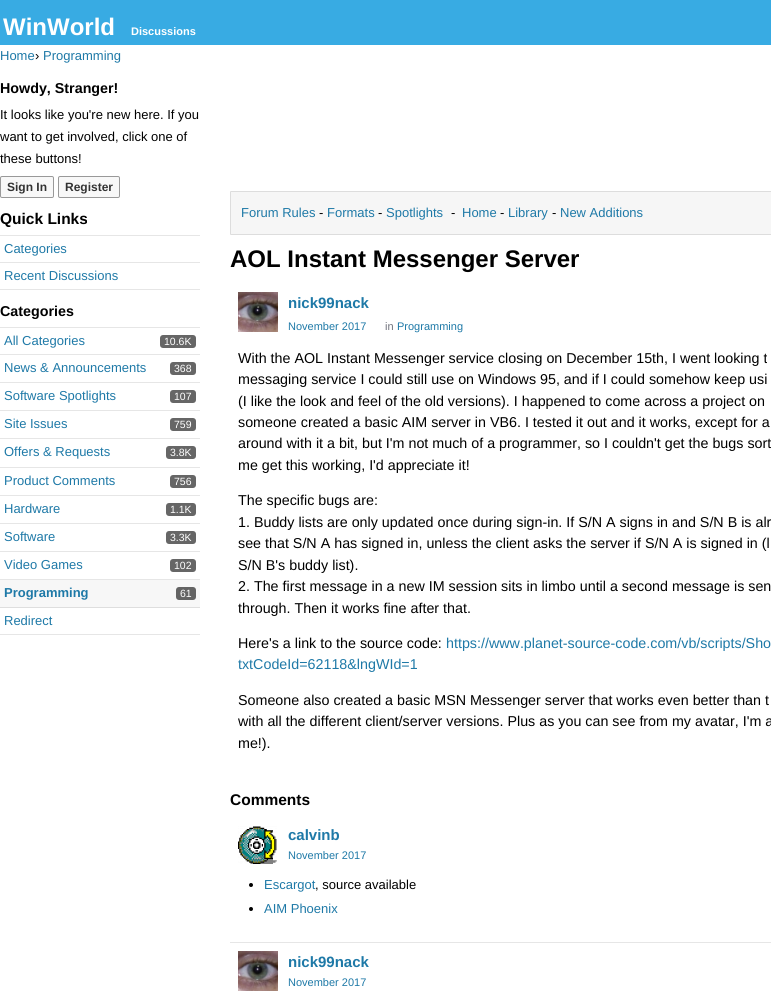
#include <cairo.h>
#include <math.h>
#include <stddef.h>


static void rgb(cairo_t *cr, int r, int g, int b)
{
	cairo_set_source_rgb(cr, r / 255.0, g / 255.0, b / 255.0);
}

static void face(cairo_t *cr, const char *family, double size, int italic, int bold)
{
	cairo_select_font_face(cr, family, italic ? CAIRO_FONT_SLANT_ITALIC : CAIRO_FONT_SLANT_NORMAL,
		bold ? CAIRO_FONT_WEIGHT_BOLD : CAIRO_FONT_WEIGHT_NORMAL);
	cairo_set_font_size(cr, size);
}

static void label(cairo_t *cr, double x, double y, const char *s)
{
	cairo_move_to(cr, x, y);
	cairo_show_text(cr, s);
}

static void rect(cairo_t *cr, double x, double y, double w, double h)
{
	cairo_rectangle(cr, x, y, w, h);
	cairo_fill(cr);
}

static void rrect(cairo_t *cr, double x, double y, double w, double h, double r)
{
	cairo_new_sub_path(cr);
	cairo_arc(cr, x + w - r, y + h - r, r, 0, M_PI / 2);
	cairo_arc(cr, x + r, y + h - r, r, M_PI / 2, M_PI);
	cairo_arc(cr, x + r, y + r, r, M_PI, 1.5 * M_PI);
	cairo_arc(cr, x + w - r, y + r, r, 1.5 * M_PI, 2 * M_PI);
	cairo_close_path(cr);
}

static void image(cairo_t *cr, const char *path, double x, double y, double w, double h)
{
	cairo_surface_t *image = cairo_image_surface_create_from_png(path);
	cairo_save(cr);
	cairo_set_source_surface(cr, image, x, y);
	cairo_rectangle(cr, x, y, w, h);
	cairo_fill(cr);
	cairo_restore(cr);
	cairo_surface_destroy(image);
}

static void draw(cairo_t *cr) {
	rgb(cr, 255, 255, 255);
	cairo_paint(cr);
	rgb(cr, 56, 171, 227);
	rect(cr, 0, 0, 771, 45);
	face(cr, "Liberation Sans", 24, 0, 1);
	rgb(cr, 255, 255, 255);
	label(cr, 3, 35, "WinWorld");
	face(cr, "Liberation Sans", 11, 0, 1);
	label(cr, 131, 35, "Discussions");
	face(cr, "Liberation Sans", 13, 0, 0);
	rgb(cr, 30, 121, 167);
	label(cr, 0, 60, "Home");
	rgb(cr, 0, 0, 0);
	label(cr, 35, 60, "›");
	rgb(cr, 30, 121, 167);
	label(cr, 43, 60, "Programming");
	face(cr, "Liberation Sans", 14.3, 0, 1);
	rgb(cr, 0, 0, 0);
	label(cr, 0, 93, "Howdy, Stranger!");
	face(cr, "Liberation Sans", 13, 0, 0);
	label(cr, 0, 119, "It looks like you're new here. If you");
	label(cr, 0, 141, "want to get involved, click one of");
	label(cr, 0, 163, "these buttons!");
	rgb(cr, 248, 248, 248);
	rrect(cr, 0.5, 176.5, 53, 21, 1.5);
	cairo_fill_preserve(cr);
	rgb(cr, 153, 153, 153);
	cairo_set_line_width(cr, 1);
	cairo_stroke(cr);
	face(cr, "Liberation Sans", 12, 0, 1);
	rgb(cr, 51, 51, 51);
	label(cr, 7, 191, "Sign In");
	rgb(cr, 248, 248, 248);
	rrect(cr, 58.5, 176.5, 61, 21, 1.5);
	cairo_fill_preserve(cr);
	rgb(cr, 153, 153, 153);
	cairo_stroke(cr);
	rgb(cr, 51, 51, 51);
	label(cr, 65, 191, "Register");
	face(cr, "Liberation Sans", 15.5, 0, 1);
	rgb(cr, 0, 0, 0);
	label(cr, 0, 224, "Quick Links");
	rgb(cr, 230, 230, 230);
	rect(cr, 0, 235, 200, 1);
	rect(cr, 0, 262, 200, 1);
	face(cr, "Liberation Sans", 13, 0, 0);
	rgb(cr, 30, 121, 167);
	label(cr, 4, 253, "Categories");
	rgb(cr, 230, 230, 230);
	rect(cr, 0, 289, 200, 1);
	rgb(cr, 30, 121, 167);
	label(cr, 4, 280, "Recent Discussions");
	face(cr, "Liberation Sans", 14.3, 0, 1);
	rgb(cr, 0, 0, 0);
	label(cr, 0, 316, "Categories");
	rgb(cr, 230, 230, 230);
	rect(cr, 0, 327, 200, 1);
	rect(cr, 0, 354, 200, 1);
	face(cr, "Liberation Sans", 13, 0, 0);
	rgb(cr, 30, 121, 167);
	label(cr, 4, 345, "All Categories");
	rgb(cr, 102, 102, 102);
	rrect(cr, 160, 335, 36, 13, 3);
	cairo_fill(cr);
	face(cr, "Liberation Sans", 10.5, 0, 0);
	rgb(cr, 255, 255, 255);
	label(cr, 164, 345, "10.6K");
	rgb(cr, 230, 230, 230);
	rect(cr, 0, 382, 200, 1);
	face(cr, "Liberation Sans", 13, 0, 0);
	rgb(cr, 30, 121, 167);
	label(cr, 4, 372, "News & Announcements");
	rgb(cr, 102, 102, 102);
	rrect(cr, 170, 362, 26, 13, 3);
	cairo_fill(cr);
	face(cr, "Liberation Sans", 10.5, 0, 0);
	rgb(cr, 255, 255, 255);
	label(cr, 174, 372, "368");
	rgb(cr, 230, 230, 230);
	rect(cr, 0, 410, 200, 1);
	face(cr, "Liberation Sans", 13, 0, 0);
	rgb(cr, 30, 121, 167);
	label(cr, 4, 400, "Software Spotlights");
	rgb(cr, 102, 102, 102);
	rrect(cr, 170, 390, 26, 13, 3);
	cairo_fill(cr);
	face(cr, "Liberation Sans", 10.5, 0, 0);
	rgb(cr, 255, 255, 255);
	label(cr, 174, 400, "107");
	rgb(cr, 230, 230, 230);
	rect(cr, 0, 438, 200, 1);
	face(cr, "Liberation Sans", 13, 0, 0);
	rgb(cr, 30, 121, 167);
	label(cr, 4, 428, "Site Issues");
	rgb(cr, 102, 102, 102);
	rrect(cr, 170, 418, 26, 13, 3);
	cairo_fill(cr);
	face(cr, "Liberation Sans", 10.5, 0, 0);
	rgb(cr, 255, 255, 255);
	label(cr, 174, 428, "759");
	rgb(cr, 230, 230, 230);
	rect(cr, 0, 467, 200, 1);
	face(cr, "Liberation Sans", 13, 0, 0);
	rgb(cr, 30, 121, 167);
	label(cr, 4, 456, "Offers & Requests");
	rgb(cr, 102, 102, 102);
	rrect(cr, 166, 446, 30, 13, 3);
	cairo_fill(cr);
	face(cr, "Liberation Sans", 10.5, 0, 0);
	rgb(cr, 255, 255, 255);
	label(cr, 170, 456, "3.8K");
	rgb(cr, 230, 230, 230);
	rect(cr, 0, 495, 200, 1);
	face(cr, "Liberation Sans", 13, 0, 0);
	rgb(cr, 30, 121, 167);
	label(cr, 4, 485, "Product Comments");
	rgb(cr, 102, 102, 102);
	rrect(cr, 170, 475, 26, 13, 3);
	cairo_fill(cr);
	face(cr, "Liberation Sans", 10.5, 0, 0);
	rgb(cr, 255, 255, 255);
	label(cr, 174, 485, "756");
	rgb(cr, 230, 230, 230);
	rect(cr, 0, 523, 200, 1);
	face(cr, "Liberation Sans", 13, 0, 0);
	rgb(cr, 30, 121, 167);
	label(cr, 4, 513, "Hardware");
	rgb(cr, 102, 102, 102);
	rrect(cr, 166, 503, 30, 13, 3);
	cairo_fill(cr);
	face(cr, "Liberation Sans", 10.5, 0, 0);
	rgb(cr, 255, 255, 255);
	label(cr, 170, 513, "1.1K");
	rgb(cr, 230, 230, 230);
	rect(cr, 0, 551, 200, 1);
	face(cr, "Liberation Sans", 13, 0, 0);
	rgb(cr, 30, 121, 167);
	label(cr, 4, 541, "Software");
	rgb(cr, 102, 102, 102);
	rrect(cr, 166, 531, 30, 13, 3);
	cairo_fill(cr);
	face(cr, "Liberation Sans", 10.5, 0, 0);
	rgb(cr, 255, 255, 255);
	label(cr, 170, 541, "3.3K");
	rgb(cr, 230, 230, 230);
	rect(cr, 0, 579, 200, 1);
	face(cr, "Liberation Sans", 13, 0, 0);
	rgb(cr, 30, 121, 167);
	label(cr, 4, 569, "Video Games");
	rgb(cr, 102, 102, 102);
	rrect(cr, 170, 559, 26, 13, 3);
	cairo_fill(cr);
	face(cr, "Liberation Sans", 10.5, 0, 0);
	rgb(cr, 255, 255, 255);
	label(cr, 174, 569, "102");
	rgb(cr, 247, 247, 247);
	rect(cr, 0, 580, 200, 27);
	rgb(cr, 222, 222, 222);
	rect(cr, 0, 607, 200, 1);
	face(cr, "Liberation Sans", 13, 0, 1);
	rgb(cr, 30, 121, 167);
	label(cr, 4, 597, "Programming");
	rgb(cr, 99, 99, 99);
	rrect(cr, 176, 587, 20, 13, 3);
	cairo_fill(cr);
	face(cr, "Liberation Sans", 10.5, 0, 0);
	rgb(cr, 255, 255, 255);
	label(cr, 180, 597, "61");
	rgb(cr, 230, 230, 230);
	rect(cr, 0, 634, 200, 1);
	face(cr, "Liberation Sans", 13, 0, 0);
	rgb(cr, 30, 121, 167);
	label(cr, 4, 625, "Redirect");
	rgb(cr, 246, 246, 246);
	rrect(cr, 230.5, 191.5, 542, 43, 0.5);
	cairo_fill_preserve(cr);
	rgb(cr, 221, 221, 221);
	cairo_stroke(cr);
	rgb(cr, 30, 121, 167);
	label(cr, 241, 217, "Forum Rules");
	rgb(cr, 0, 0, 0);
	label(cr, 319, 217, "-");
	rgb(cr, 30, 121, 167);
	label(cr, 327, 217, "Formats");
	rgb(cr, 0, 0, 0);
	label(cr, 378, 217, "-");
	rgb(cr, 30, 121, 167);
	label(cr, 386, 217, "Spotlights");
	rgb(cr, 0, 0, 0);
	label(cr, 451, 217, "-");
	rgb(cr, 30, 121, 167);
	label(cr, 462, 217, "Home");
	rgb(cr, 0, 0, 0);
	label(cr, 500, 217, "-");
	rgb(cr, 30, 121, 167);
	label(cr, 508, 217, "Library");
	rgb(cr, 0, 0, 0);
	label(cr, 552, 217, "-");
	rgb(cr, 30, 121, 167);
	label(cr, 560, 217, "New Additions");
	face(cr, "Liberation Sans", 24, 0, 1);
	rgb(cr, 0, 0, 0);
	label(cr, 230, 267, "AOL Instant Messenger Server");
	image(cr, "image0.png", 238, 292, 40, 40);
	face(cr, "Liberation Sans", 15, 0, 1);
	rgb(cr, 30, 121, 167);
	label(cr, 288, 308, "nick99nack");
	face(cr, "Liberation Sans", 11, 0, 0);
	label(cr, 288, 330, "November 2017");
	rgb(cr, 112, 114, 124);
	label(cr, 385, 330, "in");
	rgb(cr, 30, 121, 167);
	label(cr, 397, 330, "Programming");
	face(cr, "Liberation Sans", 14.3, 0, 0);
	rgb(cr, 0, 0, 0);
	label(cr, 238, 363, "With the AOL Instant Messenger service closing on December 15th, I went looking t");
	label(cr, 238, 384, "messaging service I could still use on Windows 95, and if I could somehow keep usi");
	label(cr, 238, 406, "(I like the look and feel of the old versions). I happened to come across a project on");
	label(cr, 238, 427, "someone created a basic AIM server in VB6. I tested it out and it works, except for a");
	label(cr, 238, 448, "around with it a bit, but I'm not much of a programmer, so I couldn't get the bugs sort");
	label(cr, 238, 470, "me get this working, I'd appreciate it!");
	label(cr, 238, 505, "The specific bugs are:");
	label(cr, 238, 527, "1. Buddy lists are only updated once during sign-in. If S/N A signs in and S/N B is alr");
	label(cr, 238, 548, "see that S/N A has signed in, unless the client asks the server if S/N A is signed in (l");
	label(cr, 238, 570, "S/N B's buddy list).");
	label(cr, 238, 591, "2. The first message in a new IM session sits in limbo until a second message is sen");
	label(cr, 238, 613, "through. Then it works fine after that.");
	label(cr, 238, 648, "Here's a link to the source code:");
	rgb(cr, 30, 121, 167);
	label(cr, 446, 648, "https://www.planet-source-code.com/vb/scripts/Sho");
	label(cr, 238, 669, "txtCodeId=62118&lngWId=1");
	rgb(cr, 0, 0, 0);
	label(cr, 238, 705, "Someone also created a basic MSN Messenger server that works even better than t");
	label(cr, 238, 726, "with all the different client/server versions. Plus as you can see from my avatar, I'm a");
	label(cr, 238, 748, "me!).");
	face(cr, "Liberation Sans", 15.5, 0, 1);
	label(cr, 230, 805, "Comments");
	rgb(cr, 230, 230, 230);
	rect(cr, 230, 942, 541, 1);
	image(cr, "image1.png", 238, 826, 39, 38);
	face(cr, "Liberation Sans", 15, 0, 1);
	rgb(cr, 30, 121, 167);
	label(cr, 288, 840, "calvinb");
	face(cr, "Liberation Sans", 11, 0, 0);
	label(cr, 288, 859, "November 2017");
	rgb(cr, 0, 0, 0);
	cairo_new_path(cr);
	cairo_arc(cr, 251, 885, 2, 0, 2 * M_PI);
	cairo_fill(cr);
	face(cr, "Liberation Sans", 13, 0, 0);
	rgb(cr, 30, 121, 167);
	label(cr, 264, 889, "Escargot");
	rgb(cr, 0, 0, 0);
	label(cr, 315, 889, ", source available");
	cairo_new_path(cr);
	cairo_arc(cr, 251, 909, 2, 0, 2 * M_PI);
	cairo_fill(cr);
	rgb(cr, 30, 121, 167);
	label(cr, 264, 913, "AIM Phoenix");
	image(cr, "image0.png", 238, 951, 40, 40);
	face(cr, "Liberation Sans", 15, 0, 1);
	label(cr, 288, 967, "nick99nack");
	face(cr, "Liberation Sans", 11, 0, 0);
	label(cr, 288, 986, "November 2017");
}

int main(void) {
	cairo_surface_t *surface = cairo_image_surface_create(CAIRO_FORMAT_RGB24, 771, 994);
	cairo_t *cr = cairo_create(surface);
	cairo_font_options_t *options = cairo_font_options_create();
	cairo_font_options_set_hint_metrics(options, CAIRO_HINT_METRICS_OFF);
	cairo_font_options_set_hint_style(options, CAIRO_HINT_STYLE_NONE);
	cairo_set_font_options(cr, options);
	cairo_set_miter_limit(cr, 4);
	draw(cr);
	cairo_surface_write_to_png(surface, "render.png");
	cairo_font_options_destroy(options);
	cairo_destroy(cr);
	cairo_surface_destroy(surface);
	return 0;
}
